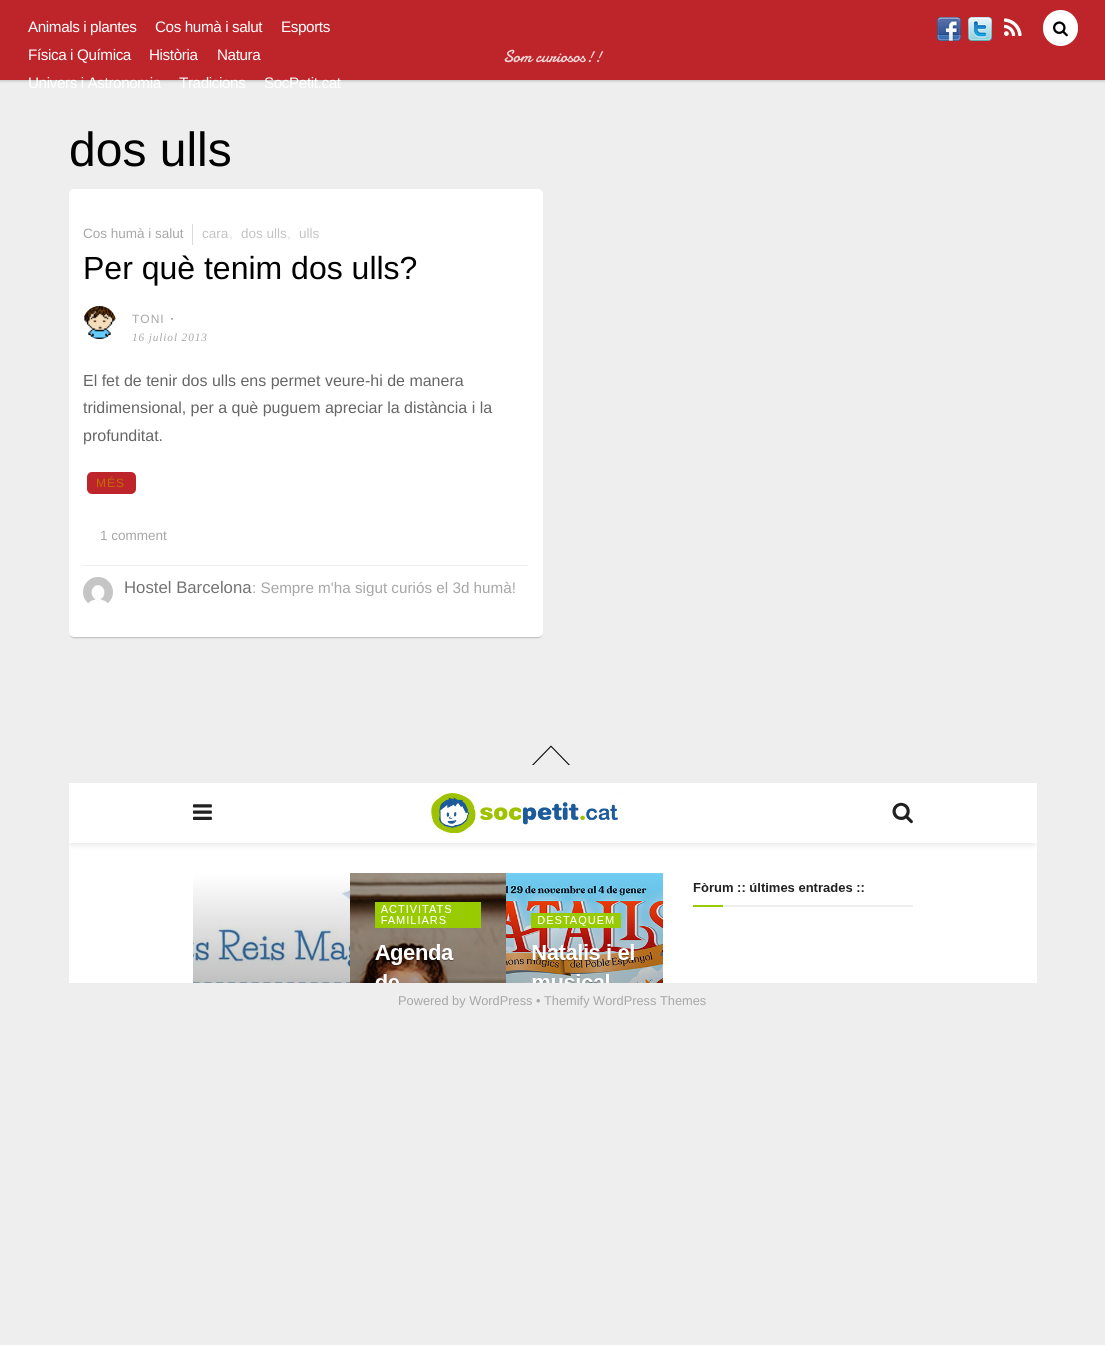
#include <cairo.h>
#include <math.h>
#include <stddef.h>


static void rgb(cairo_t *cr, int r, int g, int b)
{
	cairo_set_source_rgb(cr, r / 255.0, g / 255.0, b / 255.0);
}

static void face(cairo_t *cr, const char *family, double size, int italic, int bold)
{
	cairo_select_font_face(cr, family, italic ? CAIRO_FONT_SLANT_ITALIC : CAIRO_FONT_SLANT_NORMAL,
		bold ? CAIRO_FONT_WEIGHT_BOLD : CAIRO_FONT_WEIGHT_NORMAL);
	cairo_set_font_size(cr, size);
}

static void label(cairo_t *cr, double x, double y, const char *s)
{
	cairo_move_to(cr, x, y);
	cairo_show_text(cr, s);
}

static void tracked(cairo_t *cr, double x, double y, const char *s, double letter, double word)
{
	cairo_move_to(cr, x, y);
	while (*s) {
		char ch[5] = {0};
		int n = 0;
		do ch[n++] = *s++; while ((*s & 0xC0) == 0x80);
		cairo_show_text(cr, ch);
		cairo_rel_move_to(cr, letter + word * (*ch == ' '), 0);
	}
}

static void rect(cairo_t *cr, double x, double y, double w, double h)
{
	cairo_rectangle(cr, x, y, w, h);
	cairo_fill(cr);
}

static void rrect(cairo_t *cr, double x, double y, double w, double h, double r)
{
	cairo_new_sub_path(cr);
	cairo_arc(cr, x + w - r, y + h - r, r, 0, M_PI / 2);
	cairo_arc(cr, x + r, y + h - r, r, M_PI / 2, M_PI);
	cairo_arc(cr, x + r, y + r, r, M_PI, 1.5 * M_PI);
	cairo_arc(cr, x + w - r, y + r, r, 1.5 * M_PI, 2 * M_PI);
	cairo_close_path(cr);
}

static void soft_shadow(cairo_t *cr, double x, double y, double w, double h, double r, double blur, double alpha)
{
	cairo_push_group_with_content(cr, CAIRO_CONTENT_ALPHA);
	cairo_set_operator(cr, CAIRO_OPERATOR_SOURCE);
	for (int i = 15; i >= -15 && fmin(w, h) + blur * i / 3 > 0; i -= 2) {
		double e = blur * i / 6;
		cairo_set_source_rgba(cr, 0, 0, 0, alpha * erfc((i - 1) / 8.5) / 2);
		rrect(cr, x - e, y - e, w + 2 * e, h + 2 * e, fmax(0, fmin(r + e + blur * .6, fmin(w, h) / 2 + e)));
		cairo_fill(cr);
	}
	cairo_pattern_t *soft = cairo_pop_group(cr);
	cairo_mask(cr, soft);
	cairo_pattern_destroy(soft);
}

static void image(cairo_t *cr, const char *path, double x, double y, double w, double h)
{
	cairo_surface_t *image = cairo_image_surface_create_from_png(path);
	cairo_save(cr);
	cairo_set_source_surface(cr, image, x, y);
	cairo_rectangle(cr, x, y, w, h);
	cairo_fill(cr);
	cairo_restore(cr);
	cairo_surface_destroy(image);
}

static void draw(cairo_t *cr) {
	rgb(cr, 239, 238, 238);
	cairo_paint(cr);
	rgb(cr, 0, 0, 0);
	soft_shadow(cr, 0, 1, 1105, 80, 0, 1.5, 0.2);
	rgb(cr, 190, 37, 42);
	rect(cr, 0, 0, 1105, 80);
	face(cr, "Liberation Sans", 15.25, 0, 0);
	rgb(cr, 255, 255, 255);
	tracked(cr, 28, 32, "Animals i plantes", -0.4, 0);
	tracked(cr, 155, 32, "Cos humà i salut", -0.4, 0);
	tracked(cr, 281, 32, "Esports", -0.4, 0);
	tracked(cr, 28, 60, "Física i Química", -0.4, 0);
	tracked(cr, 149, 60, "Història", -0.4, 0);
	tracked(cr, 217, 60, "Natura", -0.4, 0);
	tracked(cr, 28, 88, "Univers i Astronomia", -0.4, 0);
	tracked(cr, 179, 88, "Tradicions", -0.4, 0);
	tracked(cr, 264, 88, "SocPetit.cat", -0.4, 0);
	face(cr, "Damion", 17.5, 0, 0);
	rgb(cr, 242, 211, 212);
	label(cr, 503, 62, "Som curiosos!!");
	image(cr, "image0.png", 937, 17, 24, 24);
	image(cr, "image1.png", 968, 17, 24, 24);
	image(cr, "image2.png", 1004, 18, 18, 18);
	rgb(cr, 255, 255, 255);
	rrect(cr, 1043, 10, 35, 36, 17.5);
	cairo_fill(cr);
	image(cr, "image3.png", 1053, 21, 15, 16);
	face(cr, "Liberation Sans", 48, 0, 0);
	rgb(cr, 0, 0, 0);
	label(cr, 69, 166, "dos ulls");
	rgb(cr, 0, 0, 0);
	soft_shadow(cr, 70, 192, 472, 446, 4, 0.5, 0.2);
	rgb(cr, 255, 255, 255);
	rrect(cr, 69, 189, 474, 448, 5);
	cairo_fill(cr);
	face(cr, "Liberation Sans", 13.5, 0, 0);
	rgb(cr, 167, 167, 167);
	label(cr, 83, 238, "Cos humà i salut");
	rgb(cr, 218, 218, 218);
	rect(cr, 192, 224, 1, 21);
	rgb(cr, 195, 195, 195);
	label(cr, 202, 238, "cara");
	rgb(cr, 218, 218, 218);
	label(cr, 229, 238, ",");
	rgb(cr, 195, 195, 195);
	label(cr, 241, 238, "dos ulls");
	rgb(cr, 218, 218, 218);
	label(cr, 287, 238, ",");
	rgb(cr, 195, 195, 195);
	label(cr, 299, 238, "ulls");
	face(cr, "Liberation Sans", 32, 0, 0);
	rgb(cr, 0, 0, 0);
	label(cr, 83, 279, "Per què tenim dos ulls?");
	image(cr, "image4.png", 84, 306, 32, 33);
	face(cr, "Liberation Sans", 12, 0, 0);
	rgb(cr, 167, 167, 167);
	tracked(cr, 132, 323, "TONI", 1, 0);
	face(cr, "DejaVu Sans", 12, 1, 0);
	rgb(cr, 102, 102, 102);
	label(cr, 169, 323, "⋅");
	face(cr, "Liberation Serif", 11.25, 1, 0);
	rgb(cr, 167, 167, 167);
	tracked(cr, 132, 341, "16 juliol 2013", 0.9, 0);
	face(cr, "Liberation Sans", 16, 0, 0);
	rgb(cr, 102, 102, 102);
	label(cr, 83, 386, "El fet de tenir dos ulls ens permet veure-hi de manera");
	label(cr, 83, 413, "tridimensional, per a què puguem apreciar la distància i la");
	label(cr, 83, 441, "profunditat.");
	rgb(cr, 190, 37, 42);
	rrect(cr, 87, 472, 49, 22, 5);
	cairo_fill(cr);
	face(cr, "Liberation Sans", 12, 0, 0);
	rgb(cr, 193, 107, 5);
	tracked(cr, 96, 487, "MÉS", 1, 0);
	face(cr, "Liberation Sans", 13.5, 0, 0);
	rgb(cr, 167, 167, 167);
	label(cr, 100, 540, "1 comment");
	rgb(cr, 238, 238, 238);
	rect(cr, 83, 565, 445, 1);
	image(cr, "image5.png", 83, 577, 30, 28);
	face(cr, "Liberation Sans", 16.75, 0, 0);
	rgb(cr, 115, 115, 115);
	label(cr, 124, 593, "Hostel Barcelona");
	face(cr, "Liberation Sans", 15.25, 0, 0);
	rgb(cr, 167, 167, 167);
	label(cr, 252, 593, ": Sempre m'ha sigut curiós el 3d humà!");
	rgb(cr, 0, 0, 0);
	cairo_new_path(cr);
	cairo_move_to(cr, 551, 745.5);
	cairo_line_to(cr, 570, 765);
	cairo_line_to(cr, 568.5, 765);
	cairo_line_to(cr, 551, 747);
	cairo_close_path(cr);
	cairo_move_to(cr, 532, 765);
	cairo_line_to(cr, 551, 745.5);
	cairo_line_to(cr, 551, 747);
	cairo_line_to(cr, 533.5, 765);
	cairo_close_path(cr);
	cairo_fill(cr);
	image(cr, "image6.png", 69, 783, 968, 200);
	face(cr, "Liberation Sans", 12.8, 0, 0);
	rgb(cr, 167, 167, 167);
	label(cr, 398, 1005, "Powered by WordPress • Themify WordPress Themes");
}

int main(void) {
	cairo_surface_t *surface = cairo_image_surface_create(CAIRO_FORMAT_RGB24, 1105, 1345);
	cairo_t *cr = cairo_create(surface);
	cairo_font_options_t *options = cairo_font_options_create();
	cairo_font_options_set_hint_metrics(options, CAIRO_HINT_METRICS_OFF);
	cairo_font_options_set_hint_style(options, CAIRO_HINT_STYLE_NONE);
	cairo_set_font_options(cr, options);
	cairo_set_miter_limit(cr, 4);
	draw(cr);
	cairo_surface_write_to_png(surface, "render.png");
	cairo_font_options_destroy(options);
	cairo_destroy(cr);
	cairo_surface_destroy(surface);
	return 0;
}
